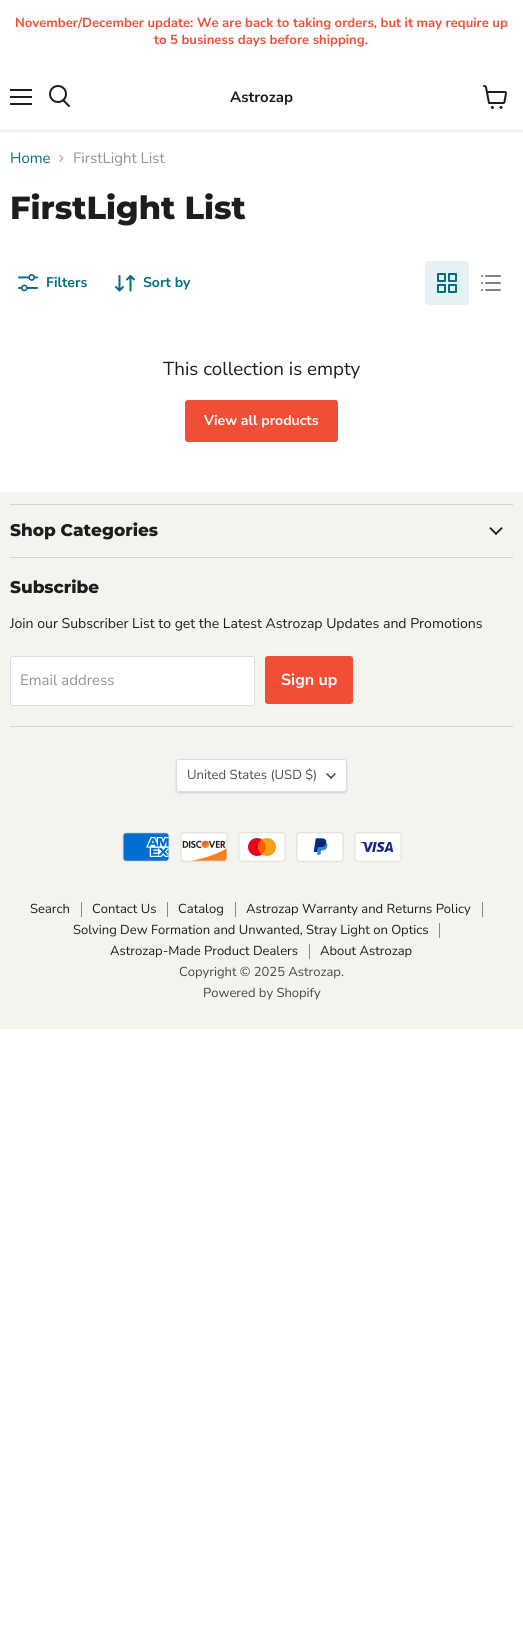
#include <cairo.h>
#include <math.h>
#include <stddef.h>


static void rgb(cairo_t *cr, int r, int g, int b)
{
	cairo_set_source_rgb(cr, r / 255.0, g / 255.0, b / 255.0);
}

static void face(cairo_t *cr, const char *family, double size, int italic, int bold)
{
	cairo_select_font_face(cr, family, italic ? CAIRO_FONT_SLANT_ITALIC : CAIRO_FONT_SLANT_NORMAL,
		bold ? CAIRO_FONT_WEIGHT_BOLD : CAIRO_FONT_WEIGHT_NORMAL);
	cairo_set_font_size(cr, size);
}

static void label(cairo_t *cr, double x, double y, const char *s)
{
	cairo_move_to(cr, x, y);
	cairo_show_text(cr, s);
}

static void rect(cairo_t *cr, double x, double y, double w, double h)
{
	cairo_rectangle(cr, x, y, w, h);
	cairo_fill(cr);
}

static void rrect(cairo_t *cr, double x, double y, double w, double h, double r)
{
	cairo_new_sub_path(cr);
	cairo_arc(cr, x + w - r, y + h - r, r, 0, M_PI / 2);
	cairo_arc(cr, x + r, y + h - r, r, M_PI / 2, M_PI);
	cairo_arc(cr, x + r, y + r, r, M_PI, 1.5 * M_PI);
	cairo_arc(cr, x + w - r, y + r, r, 1.5 * M_PI, 2 * M_PI);
	cairo_close_path(cr);
}

static void soft_shadow(cairo_t *cr, double x, double y, double w, double h, double r, double blur, double alpha)
{
	cairo_push_group_with_content(cr, CAIRO_CONTENT_ALPHA);
	cairo_set_operator(cr, CAIRO_OPERATOR_SOURCE);
	for (int i = 15; i >= -15 && fmin(w, h) + blur * i / 3 > 0; i -= 2) {
		double e = blur * i / 6;
		cairo_set_source_rgba(cr, 0, 0, 0, alpha * erfc((i - 1) / 8.5) / 2);
		rrect(cr, x - e, y - e, w + 2 * e, h + 2 * e, fmax(0, fmin(r + e + blur * .6, fmin(w, h) / 2 + e)));
		cairo_fill(cr);
	}
	cairo_pattern_t *soft = cairo_pop_group(cr);
	cairo_mask(cr, soft);
	cairo_pattern_destroy(soft);
}

static void image(cairo_t *cr, const char *path, double x, double y, double w, double h)
{
	cairo_surface_t *image = cairo_image_surface_create_from_png(path);
	cairo_save(cr);
	cairo_set_source_surface(cr, image, x, y);
	cairo_rectangle(cr, x, y, w, h);
	cairo_fill(cr);
	cairo_restore(cr);
	cairo_surface_destroy(image);
}

static void draw(cairo_t *cr) {
	rgb(cr, 255, 255, 255);
	cairo_paint(cr);
	cairo_save(cr);
	cairo_rectangle(cr, 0, 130, 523, 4);
	cairo_clip(cr);
	rgb(cr, 128, 128, 128);
	soft_shadow(cr, 0, 65, 523, 66, 0, 2, 0.25);
	cairo_restore(cr);
	rgb(cr, 255, 255, 255);
	rect(cr, 0, 62, 523, 2);
	face(cr, "Nunito Sans", 13.1, 0, 1);
	rgb(cr, 240, 79, 54);
	label(cr, 15, 27, "November/December update: We are back to taking orders, but it may require up");
	label(cr, 154, 44, "to 5 business days before shipping.");
	rgb(cr, 29, 29, 29);
	rect(cr, 10, 89, 22, 2);
	rect(cr, 10, 96, 22, 2);
	rect(cr, 10, 103, 22, 2);
	cairo_new_path(cr);
	cairo_move_to(cr, 69, 106);
	cairo_line_to(cr, 63.5, 100.5);
	cairo_set_line_cap(cr, CAIRO_LINE_CAP_ROUND);
	cairo_stroke(cr);
	cairo_arc(cr, 58, 94, 8, 0, 2 * M_PI);
	cairo_set_line_cap(cr, CAIRO_LINE_CAP_BUTT);
	cairo_stroke(cr);
	face(cr, "Nunito Sans", 15, 0, 1);
	label(cr, 230, 102, "Astrozap");
	image(cr, "image0.png", 483, 85, 24, 24);
	face(cr, "Nunito Sans", 15, 0, 0);
	rgb(cr, 4, 110, 130);
	label(cr, 10, 163, "Home");
	image(cr, "image1.png", 59, 155, 5, 7);
	rgb(cr, 148, 148, 148);
	label(cr, 73, 163, "FirstLight List");
	face(cr, "Montserrat ExtraBold", 32, 0, 0);
	rgb(cr, 29, 29, 29);
	label(cr, 10, 219, "FirstLight List");
	image(cr, "image2.png", 18, 274, 20, 18);
	face(cr, "Nunito Sans", 14.05, 0, 1);
	rgb(cr, 4, 110, 130);
	label(cr, 46, 287, "Filters");
	image(cr, "image3.png", 115, 275, 20, 17);
	label(cr, 143, 287, "Sort by");
	rgb(cr, 230, 241, 243);
	rrect(cr, 425, 261, 44, 44, 3);
	cairo_fill(cr);
	image(cr, "image4.png", 437, 273, 20, 20);
	image(cr, "image5.png", 481, 275, 20, 16);
	face(cr, "Nunito Sans", 18.75, 0, 0);
	rgb(cr, 29, 29, 29);
	label(cr, 163, 375, "This collection is empty");
	rgb(cr, 240, 79, 54);
	rrect(cr, 185.5, 400.5, 152, 41, 2.5);
	cairo_fill_preserve(cr);
	cairo_set_line_width(cr, 1);
	cairo_stroke(cr);
	face(cr, "Nunito Sans", 14, 0, 1);
	rgb(cr, 255, 255, 255);
	label(cr, 204, 425, "View all products");
	rgb(cr, 245, 243, 237);
	rect(cr, 0, 492, 523, 537);
	rgb(cr, 213, 211, 206);
	rect(cr, 10, 504, 503, 1);
	rect(cr, 10, 557, 503, 1);
	face(cr, "Montserrat ExtraBold", 16.9, 0, 0);
	rgb(cr, 29, 29, 29);
	label(cr, 10, 536, "Shop Categories");
	image(cr, "image6.png", 489, 527, 14, 8);
	rgb(cr, 213, 211, 206);
	rect(cr, 10, 726, 503, 1);
	rgb(cr, 29, 29, 29);
	label(cr, 10, 593, "Subscribe");
	face(cr, "Nunito Sans", 14.05, 0, 0);
	label(cr, 10, 628, "Join our Subscriber List to get the Latest Astrozap Updates and Promotions");
	rgb(cr, 255, 255, 255);
	rrect(cr, 10.5, 656.5, 244, 49, 2.5);
	cairo_fill_preserve(cr);
	rgb(cr, 221, 221, 221);
	cairo_stroke(cr);
	face(cr, "Nunito Sans", 15, 0, 0);
	rgb(cr, 148, 148, 148);
	label(cr, 20, 685, "Email address");
	rgb(cr, 240, 79, 54);
	rrect(cr, 265.5, 656.5, 87, 47, 2.5);
	cairo_fill_preserve(cr);
	cairo_stroke(cr);
	face(cr, "Nunito Sans", 16, 0, 1);
	rgb(cr, 255, 255, 255);
	label(cr, 281, 685, "Sign up");
	rgb(cr, 0, 0, 0);
	soft_shadow(cr, 176, 760, 171, 33, 3, 1, 0.15);
	rgb(cr, 255, 255, 255);
	rrect(cr, 176.5, 759.5, 170, 32, 2.5);
	cairo_fill_preserve(cr);
	rgb(cr, 221, 221, 221);
	cairo_stroke(cr);
	face(cr, "Nunito Sans", 13.1, 0, 0);
	rgb(cr, 77, 77, 77);
	label(cr, 187, 779, "United States (USD $)");
	image(cr, "image7.png", 326, 773, 10, 6);
	image(cr, "image8.png", 122, 832, 48, 30);
	image(cr, "image9.png", 180, 832, 48, 30);
	image(cr, "image10.png", 238, 832, 48, 30);
	image(cr, "image11.png", 296, 832, 48, 30);
	image(cr, "image12.png", 354, 832, 48, 30);
	rgb(cr, 137, 136, 133);
	rect(cr, 81, 902, 1, 15);
	face(cr, "Nunito Sans", 13, 0, 0);
	rgb(cr, 29, 29, 29);
	label(cr, 30, 913, "Search");
	rgb(cr, 137, 136, 133);
	rect(cr, 167, 902, 1, 15);
	rgb(cr, 29, 29, 29);
	label(cr, 92, 913, "Contact Us");
	rgb(cr, 137, 136, 133);
	rect(cr, 235, 902, 1, 15);
	rgb(cr, 29, 29, 29);
	label(cr, 178, 913, "Catalog");
	rgb(cr, 137, 136, 133);
	rect(cr, 482, 902, 1, 15);
	rgb(cr, 29, 29, 29);
	label(cr, 246, 913, "Astrozap Warranty and Returns Policy");
	rgb(cr, 137, 136, 133);
	rect(cr, 439, 923, 1, 15);
	rgb(cr, 29, 29, 29);
	label(cr, 73, 934, "Solving Dew Formation and Unwanted, Stray Light on Optics");
	rgb(cr, 137, 136, 133);
	rect(cr, 309, 944, 1, 15);
	rgb(cr, 29, 29, 29);
	label(cr, 110, 955, "Astrozap-Made Product Dealers");
	label(cr, 320, 955, "About Astrozap");
	rgb(cr, 72, 72, 71);
	label(cr, 179, 976, "Copyright © 2025 Astrozap.");
	label(cr, 203, 997, "Powered by Shopify");
}

int main(void) {
	cairo_surface_t *surface = cairo_image_surface_create(CAIRO_FORMAT_RGB24, 523, 1636);
	cairo_t *cr = cairo_create(surface);
	cairo_font_options_t *options = cairo_font_options_create();
	cairo_font_options_set_hint_metrics(options, CAIRO_HINT_METRICS_OFF);
	cairo_font_options_set_hint_style(options, CAIRO_HINT_STYLE_NONE);
	cairo_set_font_options(cr, options);
	cairo_set_miter_limit(cr, 4);
	draw(cr);
	cairo_surface_write_to_png(surface, "render.png");
	cairo_font_options_destroy(options);
	cairo_destroy(cr);
	cairo_surface_destroy(surface);
	return 0;
}
